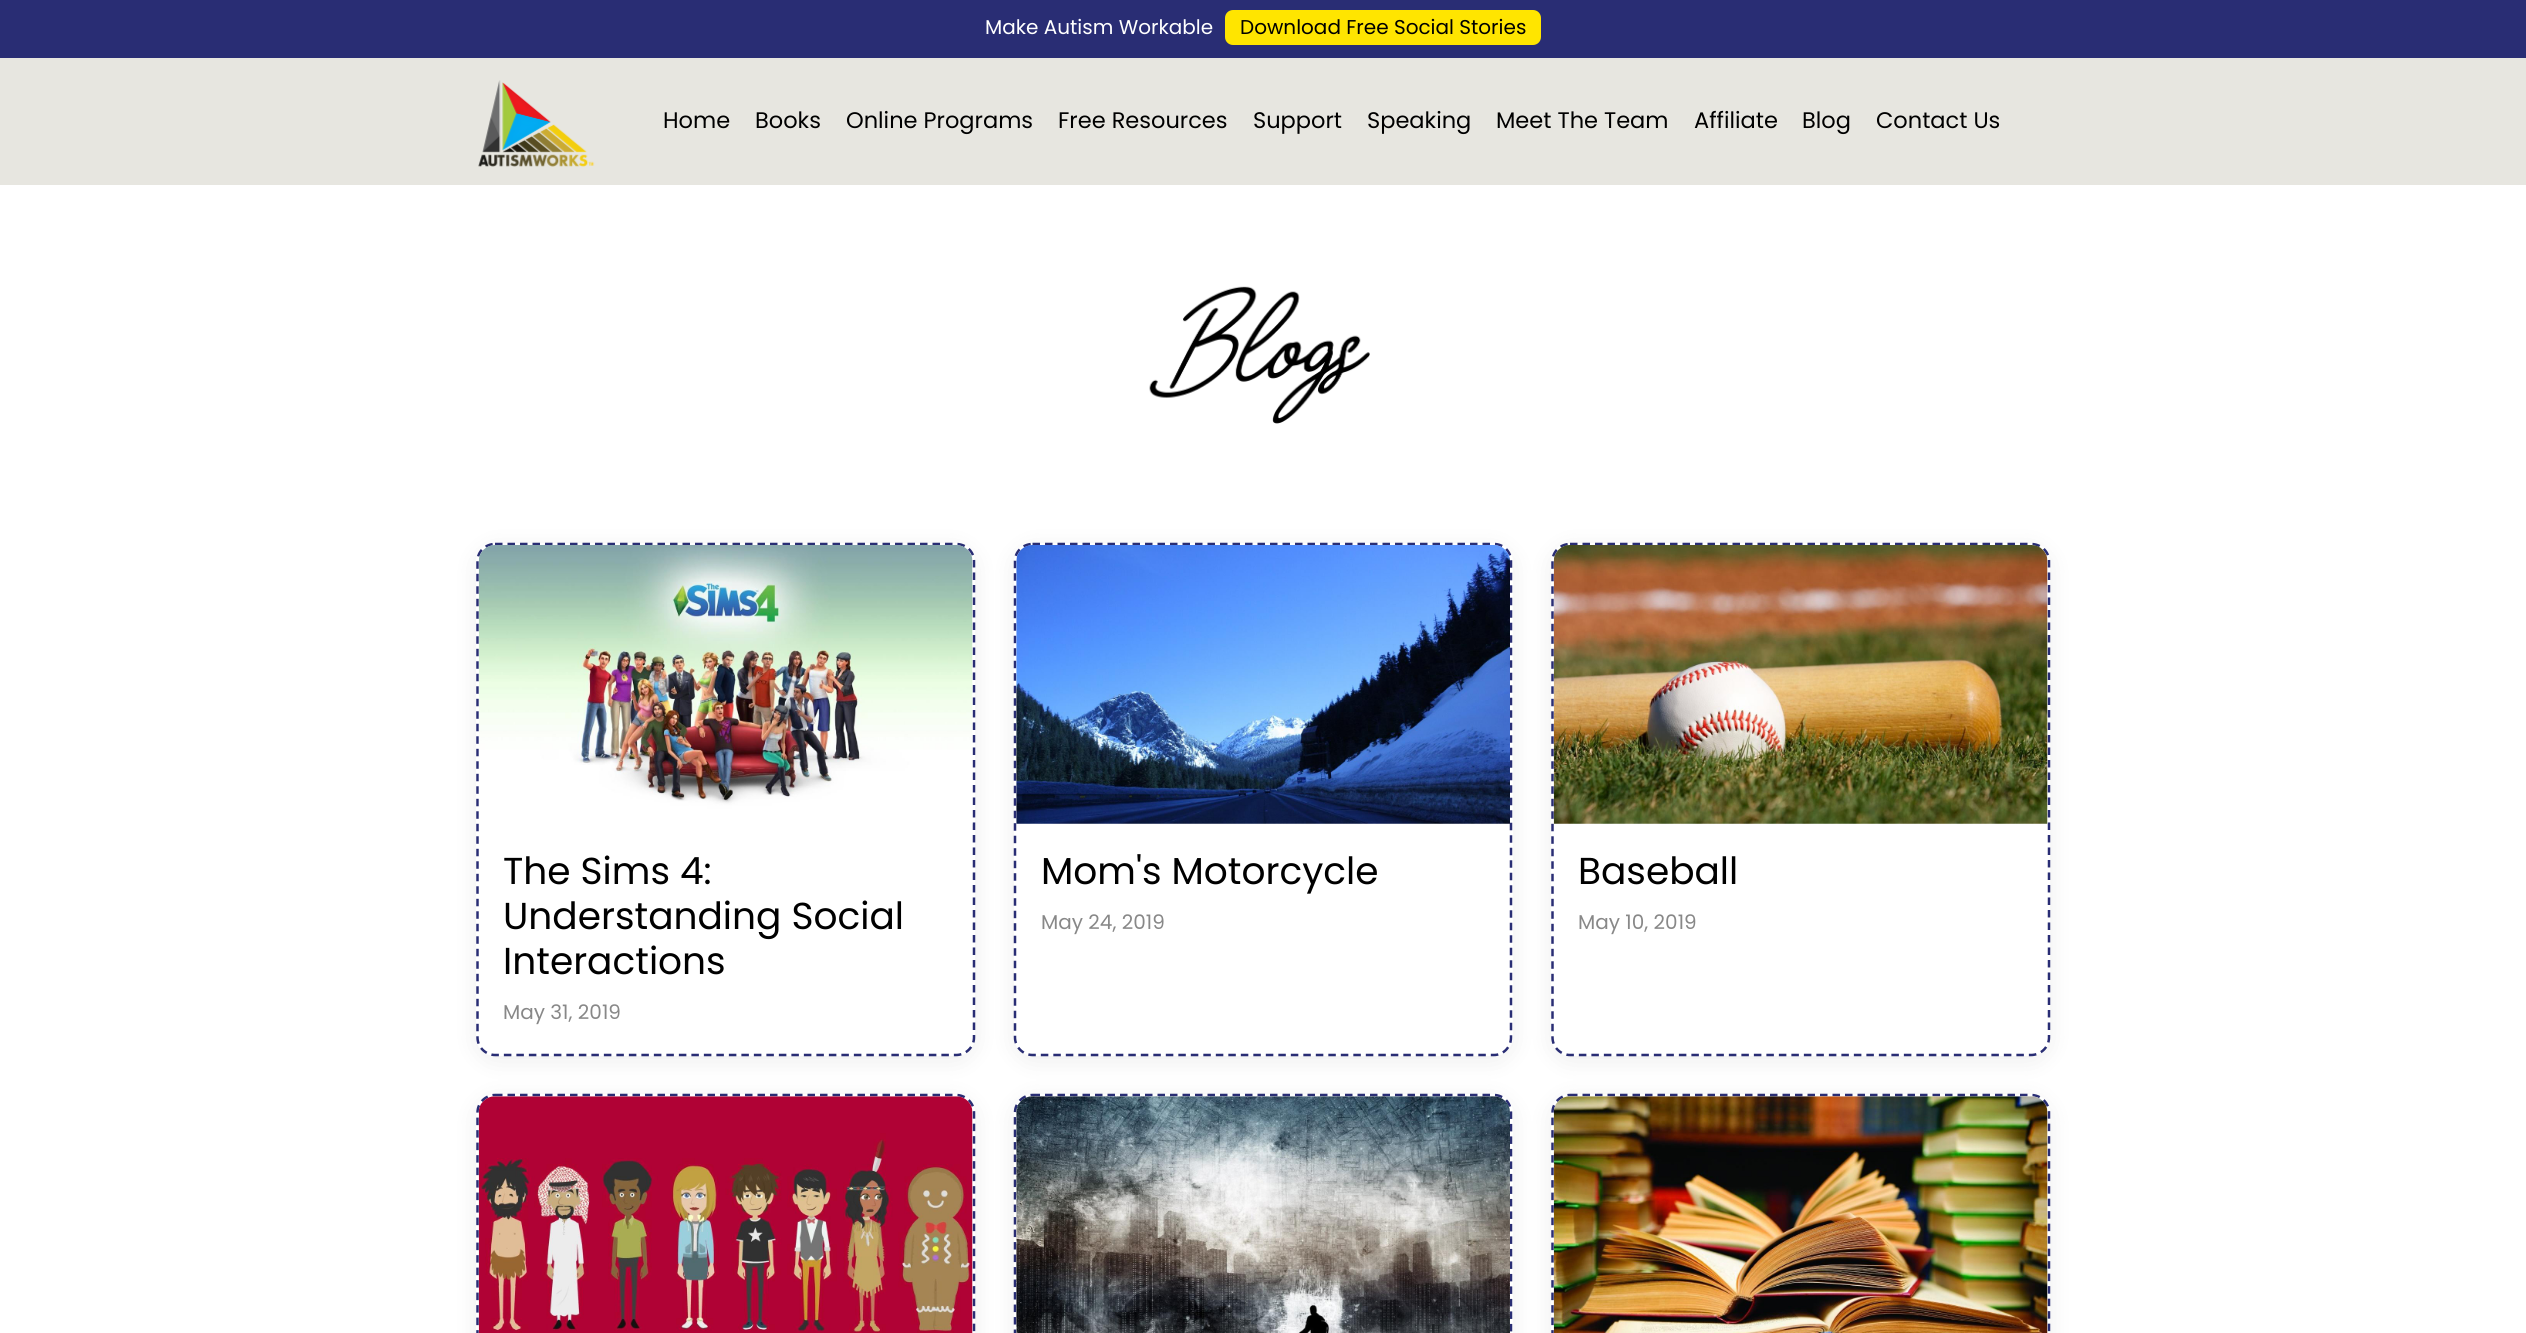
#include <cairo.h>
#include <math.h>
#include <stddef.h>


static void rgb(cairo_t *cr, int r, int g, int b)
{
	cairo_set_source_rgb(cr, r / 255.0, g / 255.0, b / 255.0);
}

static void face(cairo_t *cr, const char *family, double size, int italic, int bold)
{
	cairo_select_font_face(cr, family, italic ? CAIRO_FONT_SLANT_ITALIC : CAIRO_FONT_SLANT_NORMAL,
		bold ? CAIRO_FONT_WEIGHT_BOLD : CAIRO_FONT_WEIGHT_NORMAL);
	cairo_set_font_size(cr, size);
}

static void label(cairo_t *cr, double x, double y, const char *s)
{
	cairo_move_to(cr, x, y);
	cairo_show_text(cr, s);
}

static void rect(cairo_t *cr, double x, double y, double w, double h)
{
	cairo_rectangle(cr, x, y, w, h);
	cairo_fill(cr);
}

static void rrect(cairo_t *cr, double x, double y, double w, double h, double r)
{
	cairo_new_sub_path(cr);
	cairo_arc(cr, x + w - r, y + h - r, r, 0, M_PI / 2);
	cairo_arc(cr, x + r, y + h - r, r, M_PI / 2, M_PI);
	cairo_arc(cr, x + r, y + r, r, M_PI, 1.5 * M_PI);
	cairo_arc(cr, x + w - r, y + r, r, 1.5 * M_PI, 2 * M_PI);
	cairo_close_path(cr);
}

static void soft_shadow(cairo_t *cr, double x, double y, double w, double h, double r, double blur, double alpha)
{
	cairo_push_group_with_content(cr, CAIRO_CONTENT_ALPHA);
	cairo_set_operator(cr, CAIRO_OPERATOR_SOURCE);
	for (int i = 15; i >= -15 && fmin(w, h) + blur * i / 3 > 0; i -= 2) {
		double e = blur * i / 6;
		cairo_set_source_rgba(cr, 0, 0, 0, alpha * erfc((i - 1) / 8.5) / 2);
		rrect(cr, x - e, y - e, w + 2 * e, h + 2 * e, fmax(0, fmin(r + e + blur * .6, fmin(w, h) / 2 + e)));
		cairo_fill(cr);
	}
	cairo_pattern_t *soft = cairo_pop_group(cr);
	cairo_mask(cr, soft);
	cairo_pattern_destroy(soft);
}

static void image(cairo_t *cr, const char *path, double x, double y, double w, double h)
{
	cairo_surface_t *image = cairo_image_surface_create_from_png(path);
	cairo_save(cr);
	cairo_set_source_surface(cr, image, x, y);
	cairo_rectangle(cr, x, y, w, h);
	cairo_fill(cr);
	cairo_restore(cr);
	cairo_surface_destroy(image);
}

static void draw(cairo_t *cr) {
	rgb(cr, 255, 255, 255);
	cairo_paint(cr);
	rgb(cr, 231, 230, 224);
	rect(cr, 0, 58, 2526, 127);
	rgb(cr, 41, 45, 116);
	rect(cr, 0, 0, 2526, 58);
	face(cr, "Poppins", 20, 0, 0);
	rgb(cr, 255, 255, 255);
	label(cr, 985, 34, "Make Autism Workable");
	rgb(cr, 255, 229, 0);
	rrect(cr, 1225, 10, 316, 35, 8);
	cairo_fill(cr);
	rgb(cr, 0, 0, 0);
	label(cr, 1240, 34, "Download Free Social Stories");
	image(cr, "image0.png", 478, 80, 117, 87);
	face(cr, "Poppins", 22.5, 0, 0);
	label(cr, 663, 128, "Home");
	label(cr, 755, 128, "Books");
	label(cr, 846, 128, "Online Programs");
	label(cr, 1058, 128, "Free Resources");
	label(cr, 1253, 128, "Support");
	label(cr, 1367, 128, "Speaking");
	label(cr, 1496, 128, "Meet The Team");
	label(cr, 1694, 128, "Affiliate");
	label(cr, 1802, 128, "Blog");
	label(cr, 1876, 128, "Contact Us");
	image(cr, "image1.png", 1149, 286, 221, 138);
	rgb(cr, 0, 0, 0);
	soft_shadow(cr, 476, 548, 499, 513, 19, 12.5, 0.07);
	rgb(cr, 255, 255, 255);
	rrect(cr, 476, 543, 499, 513, 19);
	cairo_fill(cr);
	cairo_new_path(cr);
	cairo_move_to(cr, 495, 544);
	cairo_line_to(cr, 956, 544);
	cairo_curve_to(cr, 966, 544, 974, 551.5, 974, 561);
	cairo_line_to(cr, 974, 1037.5);
	cairo_curve_to(cr, 974, 1047, 966, 1055, 956, 1055);
	cairo_line_to(cr, 495, 1055);
	cairo_curve_to(cr, 485.5, 1055, 477.5, 1047, 477.5, 1037.5);
	cairo_line_to(cr, 477.5, 561);
	cairo_curve_to(cr, 477.5, 551.5, 485.5, 544, 495, 544);
	cairo_close_path(cr);
	rgb(cr, 41, 45, 116);
	cairo_set_line_width(cr, 2.5);
	cairo_set_dash(cr, (double[]){7.5, 5}, 2, 0);
	cairo_stroke(cr);
	image(cr, "image2.png", 478, 545, 495, 279);
	face(cr, "Poppins", 37.5, 0, 0);
	rgb(cr, 0, 0, 0);
	label(cr, 503, 884, "The Sims 4:");
	label(cr, 503, 929, "Understanding Social");
	label(cr, 503, 974, "Interactions");
	face(cr, "Poppins", 20, 0, 0);
	rgb(cr, 136, 136, 136);
	label(cr, 503, 1019, "May 31, 2019");
	rgb(cr, 0, 0, 0);
	soft_shadow(cr, 1014, 548, 499, 513, 19, 12.5, 0.07);
	rgb(cr, 255, 255, 255);
	rrect(cr, 1014, 543, 499, 513, 19);
	cairo_fill(cr);
	cairo_new_path(cr);
	cairo_move_to(cr, 1032.5, 544);
	cairo_line_to(cr, 1494, 544);
	cairo_curve_to(cr, 1503.5, 544, 1511, 551.5, 1511, 561);
	cairo_line_to(cr, 1511, 1037.5);
	cairo_curve_to(cr, 1511, 1047, 1503.5, 1055, 1494, 1055);
	cairo_line_to(cr, 1032.5, 1055);
	cairo_curve_to(cr, 1023, 1055, 1015, 1047, 1015, 1037.5);
	cairo_line_to(cr, 1015, 561);
	cairo_curve_to(cr, 1015, 551.5, 1023, 544, 1032.5, 544);
	cairo_close_path(cr);
	rgb(cr, 41, 45, 116);
	cairo_stroke(cr);
	image(cr, "image3.png", 1016, 545, 494, 279);
	face(cr, "Poppins", 37.5, 0, 0);
	rgb(cr, 0, 0, 0);
	label(cr, 1041, 884, "Mom's Motorcycle");
	face(cr, "Poppins", 20, 0, 0);
	rgb(cr, 136, 136, 136);
	label(cr, 1041, 929, "May 24, 2019");
	rgb(cr, 0, 0, 0);
	soft_shadow(cr, 1551, 548, 499, 513, 19, 12.5, 0.07);
	rgb(cr, 255, 255, 255);
	rrect(cr, 1551, 543, 499, 513, 19);
	cairo_fill(cr);
	cairo_new_path(cr);
	cairo_move_to(cr, 1570, 544);
	cairo_line_to(cr, 2031, 544);
	cairo_curve_to(cr, 2041, 544, 2049, 551.5, 2049, 561);
	cairo_line_to(cr, 2049, 1037.5);
	cairo_curve_to(cr, 2049, 1047, 2041, 1055, 2031, 1055);
	cairo_line_to(cr, 1570, 1055);
	cairo_curve_to(cr, 1560.5, 1055, 1552.5, 1047, 1552.5, 1037.5);
	cairo_line_to(cr, 1552.5, 561);
	cairo_curve_to(cr, 1552.5, 551.5, 1560.5, 544, 1570, 544);
	cairo_close_path(cr);
	rgb(cr, 41, 45, 116);
	cairo_stroke(cr);
	image(cr, "image4.png", 1553, 545, 495, 279);
	face(cr, "Poppins", 37.5, 0, 0);
	rgb(cr, 0, 0, 0);
	label(cr, 1578, 884, "Baseball");
	face(cr, "Poppins", 20, 0, 0);
	rgb(cr, 136, 136, 136);
	label(cr, 1578, 929, "May 10, 2019");
	rgb(cr, 0, 0, 0);
	soft_shadow(cr, 476, 1099, 499, 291, 19, 12.5, 0.07);
	rgb(cr, 255, 255, 255);
	rrect(cr, 476, 1094, 499, 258, 19);
	cairo_fill(cr);
	cairo_new_path(cr);
	cairo_move_to(cr, 495, 1095);
	cairo_line_to(cr, 956, 1095);
	cairo_curve_to(cr, 966, 1095, 974, 1103, 974, 1112.5);
	cairo_line_to(cr, 974, 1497.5);
	cairo_curve_to(cr, 974, 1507, 966, 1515, 956, 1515);
	cairo_line_to(cr, 495, 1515);
	cairo_curve_to(cr, 485.5, 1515, 477.5, 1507, 477.5, 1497.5);
	cairo_line_to(cr, 477.5, 1112.5);
	cairo_curve_to(cr, 477.5, 1103, 485.5, 1095, 495, 1095);
	cairo_close_path(cr);
	rgb(cr, 41, 45, 116);
	cairo_stroke(cr);
	image(cr, "image5.png", 478, 1096, 495, 237);
	rgb(cr, 0, 0, 0);
	soft_shadow(cr, 1014, 1099, 499, 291, 19, 12.5, 0.07);
	rgb(cr, 255, 255, 255);
	rrect(cr, 1014, 1094, 499, 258, 19);
	cairo_fill(cr);
	cairo_new_path(cr);
	cairo_move_to(cr, 1032.5, 1095);
	cairo_line_to(cr, 1494, 1095);
	cairo_curve_to(cr, 1503.5, 1095, 1511, 1103, 1511, 1112.5);
	cairo_line_to(cr, 1511, 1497.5);
	cairo_curve_to(cr, 1511, 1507, 1503.5, 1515, 1494, 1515);
	cairo_line_to(cr, 1032.5, 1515);
	cairo_curve_to(cr, 1023, 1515, 1015, 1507, 1015, 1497.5);
	cairo_line_to(cr, 1015, 1112.5);
	cairo_curve_to(cr, 1015, 1103, 1023, 1095, 1032.5, 1095);
	cairo_close_path(cr);
	rgb(cr, 41, 45, 116);
	cairo_stroke(cr);
	image(cr, "image6.png", 1016, 1096, 494, 237);
	rgb(cr, 0, 0, 0);
	soft_shadow(cr, 1551, 1099, 499, 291, 19, 12.5, 0.07);
	rgb(cr, 255, 255, 255);
	rrect(cr, 1551, 1094, 499, 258, 19);
	cairo_fill(cr);
	cairo_new_path(cr);
	cairo_move_to(cr, 1570, 1095);
	cairo_line_to(cr, 2031, 1095);
	cairo_curve_to(cr, 2041, 1095, 2049, 1103, 2049, 1112.5);
	cairo_line_to(cr, 2049, 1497.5);
	cairo_curve_to(cr, 2049, 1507, 2041, 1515, 2031, 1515);
	cairo_line_to(cr, 1570, 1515);
	cairo_curve_to(cr, 1560.5, 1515, 1552.5, 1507, 1552.5, 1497.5);
	cairo_line_to(cr, 1552.5, 1112.5);
	cairo_curve_to(cr, 1552.5, 1103, 1560.5, 1095, 1570, 1095);
	cairo_close_path(cr);
	rgb(cr, 41, 45, 116);
	cairo_stroke(cr);
	image(cr, "image7.png", 1553, 1096, 495, 237);
}

int main(void) {
	cairo_surface_t *surface = cairo_image_surface_create(CAIRO_FORMAT_RGB24, 2526, 1333);
	cairo_t *cr = cairo_create(surface);
	cairo_font_options_t *options = cairo_font_options_create();
	cairo_font_options_set_hint_metrics(options, CAIRO_HINT_METRICS_OFF);
	cairo_font_options_set_hint_style(options, CAIRO_HINT_STYLE_NONE);
	cairo_set_font_options(cr, options);
	cairo_set_miter_limit(cr, 4);
	draw(cr);
	cairo_surface_write_to_png(surface, "render.png");
	cairo_font_options_destroy(options);
	cairo_destroy(cr);
	cairo_surface_destroy(surface);
	return 0;
}
